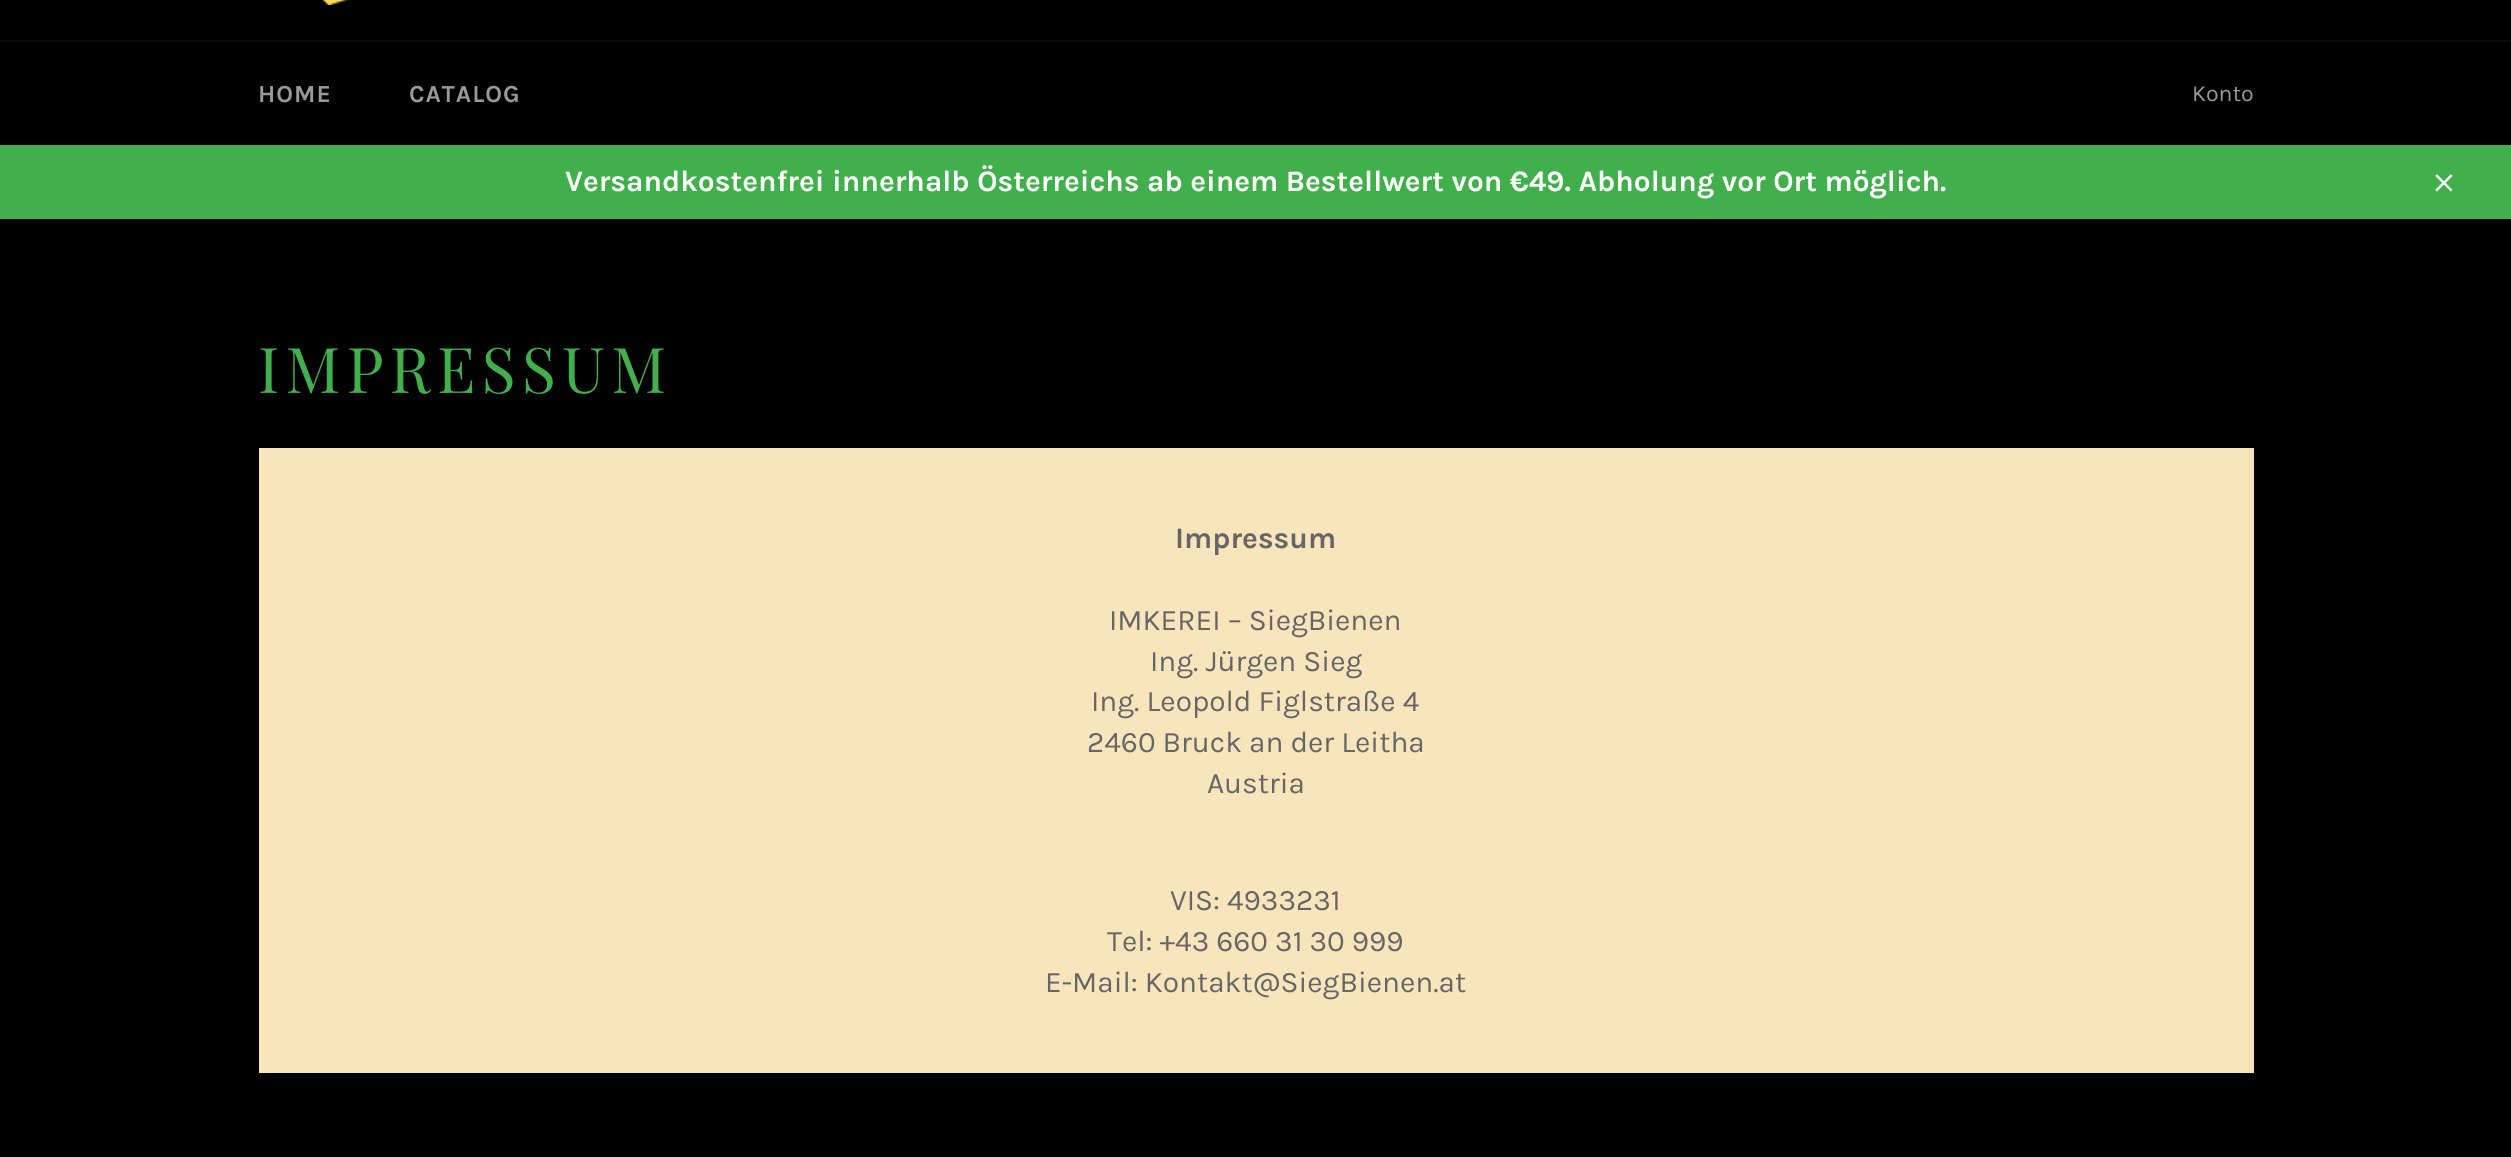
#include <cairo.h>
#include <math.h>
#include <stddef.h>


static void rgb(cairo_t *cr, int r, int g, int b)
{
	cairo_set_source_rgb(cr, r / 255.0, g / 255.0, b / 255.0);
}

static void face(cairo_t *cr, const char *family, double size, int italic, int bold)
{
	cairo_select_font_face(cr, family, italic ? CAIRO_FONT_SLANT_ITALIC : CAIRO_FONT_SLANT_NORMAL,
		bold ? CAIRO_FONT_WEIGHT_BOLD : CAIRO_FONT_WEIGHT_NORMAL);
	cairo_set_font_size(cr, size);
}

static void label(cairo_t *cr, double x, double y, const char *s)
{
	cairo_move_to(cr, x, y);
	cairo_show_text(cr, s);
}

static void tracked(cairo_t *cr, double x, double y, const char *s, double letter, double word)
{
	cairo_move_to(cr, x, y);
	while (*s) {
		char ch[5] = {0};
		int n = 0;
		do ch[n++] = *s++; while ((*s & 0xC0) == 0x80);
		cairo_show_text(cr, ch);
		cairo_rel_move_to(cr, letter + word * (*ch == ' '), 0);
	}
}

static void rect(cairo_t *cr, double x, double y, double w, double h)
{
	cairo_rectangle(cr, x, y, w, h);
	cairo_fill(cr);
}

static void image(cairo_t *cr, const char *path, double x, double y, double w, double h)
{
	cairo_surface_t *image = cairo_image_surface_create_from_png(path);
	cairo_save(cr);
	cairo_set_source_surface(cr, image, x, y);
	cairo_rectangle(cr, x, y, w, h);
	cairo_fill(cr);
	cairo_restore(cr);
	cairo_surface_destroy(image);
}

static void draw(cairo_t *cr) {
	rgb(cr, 0, 0, 0);
	cairo_paint(cr);
	image(cr, "image0.png", 321, 0, 29, 5);
	rgb(cr, 13, 13, 13);
	rect(cr, 0, 40, 2511, 2);
	face(cr, "Karla", 24.5, 0, 1);
	rgb(cr, 153, 153, 153);
	tracked(cr, 258, 102, "HOME", 1, 0);
	tracked(cr, 409, 102, "CATALOG", 1, 0);
	face(cr, "Karla", 23, 0, 0);
	label(cr, 2192, 101, "Konto");
	rgb(cr, 66, 175, 77);
	rect(cr, 0, 145, 2511, 74);
	face(cr, "Karla", 29.75, 0, 1);
	rgb(cr, 255, 255, 255);
	label(cr, 565, 191, "Versandkostenfrei innerhalb Österreichs ab einem Bestellwert von €49. Abholung vor Ort möglich.");
	image(cr, "image1.png", 2435, 174, 18, 18);
	face(cr, "Playfair Display", 63, 0, 0);
	rgb(cr, 66, 175, 77);
	tracked(cr, 258, 393, "IMPRESSUM", 6.25, 0);
	rgb(cr, 249, 229, 188);
	rect(cr, 259, 448, 1995, 625);
	face(cr, "Karla", 29.75, 0, 1);
	rgb(cr, 102, 102, 102);
	label(cr, 1175, 548, "Impressum");
	face(cr, "Karla", 29.75, 0, 0);
	label(cr, 1109, 630, "IMKEREI – SiegBienen");
	label(cr, 1150, 671, "Ing. Jürgen Sieg");
	label(cr, 1091, 711, "Ing. Leopold Figlstraße 4");
	label(cr, 1087, 752, "2460 Bruck an der Leitha");
	label(cr, 1207, 793, "Austria");
	label(cr, 1170, 910, "VIS: 4933231");
	label(cr, 1107, 951, "Tel: +43 660 31 30 999");
	label(cr, 1045, 992, "E-Mail: Kontakt@SiegBienen.at");
}

int main(void) {
	cairo_surface_t *surface = cairo_image_surface_create(CAIRO_FORMAT_RGB24, 2511, 1157);
	cairo_t *cr = cairo_create(surface);
	cairo_font_options_t *options = cairo_font_options_create();
	cairo_font_options_set_hint_metrics(options, CAIRO_HINT_METRICS_OFF);
	cairo_font_options_set_hint_style(options, CAIRO_HINT_STYLE_NONE);
	cairo_set_font_options(cr, options);
	cairo_set_miter_limit(cr, 4);
	draw(cr);
	cairo_surface_write_to_png(surface, "render.png");
	cairo_font_options_destroy(options);
	cairo_destroy(cr);
	cairo_surface_destroy(surface);
	return 0;
}
